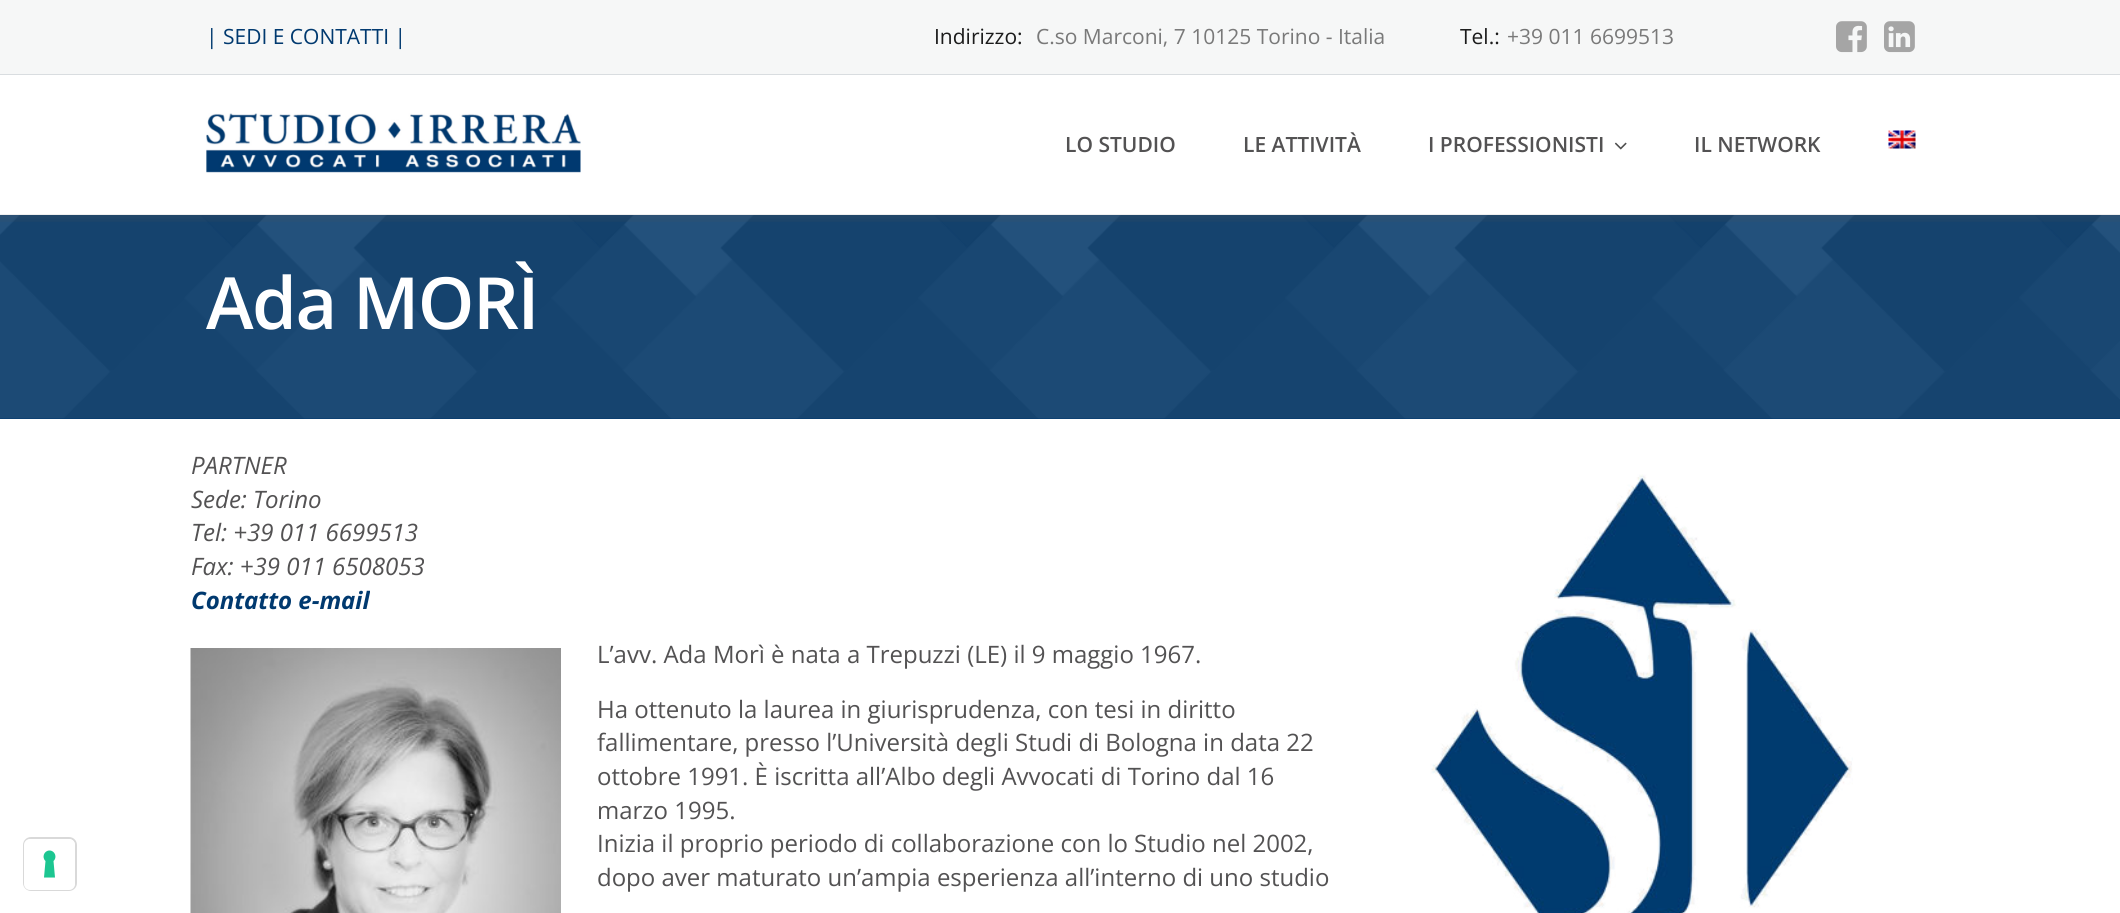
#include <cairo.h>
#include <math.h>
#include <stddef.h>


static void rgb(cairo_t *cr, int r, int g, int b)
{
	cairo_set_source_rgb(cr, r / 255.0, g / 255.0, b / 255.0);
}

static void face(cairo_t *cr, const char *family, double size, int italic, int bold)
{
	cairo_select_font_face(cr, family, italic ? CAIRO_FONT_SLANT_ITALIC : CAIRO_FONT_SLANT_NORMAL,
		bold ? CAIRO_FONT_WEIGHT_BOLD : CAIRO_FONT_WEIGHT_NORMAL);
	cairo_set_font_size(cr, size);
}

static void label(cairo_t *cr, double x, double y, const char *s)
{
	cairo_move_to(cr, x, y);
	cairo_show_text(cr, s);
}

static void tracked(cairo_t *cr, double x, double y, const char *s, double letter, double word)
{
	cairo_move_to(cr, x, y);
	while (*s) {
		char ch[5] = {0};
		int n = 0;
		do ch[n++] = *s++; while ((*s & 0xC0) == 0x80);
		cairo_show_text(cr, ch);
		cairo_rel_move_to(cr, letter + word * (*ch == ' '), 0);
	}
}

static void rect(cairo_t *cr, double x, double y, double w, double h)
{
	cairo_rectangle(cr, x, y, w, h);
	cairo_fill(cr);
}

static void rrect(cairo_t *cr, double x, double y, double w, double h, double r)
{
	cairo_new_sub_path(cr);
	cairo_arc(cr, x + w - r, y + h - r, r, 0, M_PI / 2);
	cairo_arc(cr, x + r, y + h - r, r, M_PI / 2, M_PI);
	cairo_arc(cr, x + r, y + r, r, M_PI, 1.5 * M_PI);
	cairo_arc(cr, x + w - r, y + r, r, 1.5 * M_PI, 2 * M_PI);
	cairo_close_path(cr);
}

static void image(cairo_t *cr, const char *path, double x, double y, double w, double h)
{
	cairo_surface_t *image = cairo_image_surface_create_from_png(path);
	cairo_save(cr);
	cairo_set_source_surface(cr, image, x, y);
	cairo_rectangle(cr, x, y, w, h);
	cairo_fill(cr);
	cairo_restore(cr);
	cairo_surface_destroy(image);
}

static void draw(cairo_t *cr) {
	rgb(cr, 255, 255, 255);
	cairo_paint(cr);
	rrect(cr, 24, 838, 52, 52, 7);
	rgb(cr, 217, 217, 217);
	cairo_stroke(cr);
	rgb(cr, 255, 255, 255);
	rrect(cr, 24, 839, 51, 51, 6);
	cairo_fill(cr);
	rgb(cr, 28, 198, 145);
	cairo_set_fill_rule(cr, CAIRO_FILL_RULE_EVEN_ODD);
	cairo_new_path(cr);
	cairo_move_to(cr, 49.5, 850.5);
	cairo_curve_to(cr, 55, 850.5, 57.5, 857.5, 53.5, 861);
	cairo_line_to(cr, 55, 877.5);
	cairo_line_to(cr, 44, 877.5);
	cairo_line_to(cr, 45.5, 861);
	cairo_curve_to(cr, 41.5, 857.5, 44, 850.5, 49.5, 850.5);
	cairo_close_path(cr);
	cairo_fill(cr);
	rgb(cr, 246, 247, 247);
	rect(cr, 0, 0, 2120, 74);
	rgb(cr, 217, 221, 224);
	rect(cr, 0, 74, 2120, 1);
	face(cr, "Open Sans", 21, 0, 0);
	rgb(cr, 0, 57, 111);
	label(cr, 206, 44, "| SEDI E CONTATTI |");
	rgb(cr, 27, 27, 27);
	label(cr, 934, 44, "Indirizzo:");
	rgb(cr, 121, 121, 121);
	label(cr, 1036, 44, "C.so Marconi, 7 10125 Torino - Italia");
	rgb(cr, 27, 27, 27);
	label(cr, 1460, 44, "Tel.:");
	rgb(cr, 121, 121, 121);
	label(cr, 1507, 44, "+39 011 6699513");
	image(cr, "image0.png", 1836, 21, 31, 32);
	image(cr, "image1.png", 1884, 21, 31, 32);
	image(cr, "image2.png", 206, 113, 375, 60);
	face(cr, "Open Sans SemiBold", 21, 0, 0);
	rgb(cr, 83, 82, 83);
	label(cr, 1065, 152, "LO STUDIO");
	label(cr, 1243, 152, "LE ATTIVITÀ");
	label(cr, 1428, 152, "I PROFESSIONISTI");
	image(cr, "image3.png", 1614, 142, 13, 8);
	label(cr, 1694, 152, "IL NETWORK");
	image(cr, "image4.png", 1888, 130, 28, 19);
	rgb(cr, 0, 57, 111);
	rect(cr, 0, 215, 2120, 204);
	image(cr, "image6.png", 0, 215, 2120, 204);
	image(cr, "image5.png", 0, 214, 2120, 8);
	face(cr, "Open Sans SemiBold", 72, 0, 0);
	rgb(cr, 255, 255, 255);
	tracked(cr, 206, 329, "Ada MORÌ", -1.5, 0);
	face(cr, "Open Sans", 24, 1, 0);
	rgb(cr, 83, 82, 83);
	label(cr, 191, 474, "PARTNER");
	label(cr, 191, 508, "Sede: Torino");
	label(cr, 191, 541, "Tel: +39 011 6699513");
	label(cr, 191, 575, "Fax: +39 011 6508053");
	face(cr, "Open Sans", 24, 1, 1);
	rgb(cr, 0, 57, 111);
	label(cr, 191, 609, "Contatto e-mail");
	image(cr, "image7.png", 190, 648, 371, 265);
	face(cr, "Open Sans", 24, 0, 0);
	rgb(cr, 83, 82, 83);
	label(cr, 597, 663, "L’avv. Ada Morì è nata a Trepuzzi (LE) il 9 maggio 1967.");
	label(cr, 597, 718, "Ha ottenuto la laurea in giurisprudenza, con tesi in diritto");
	label(cr, 597, 751, "fallimentare, presso l’Università degli Studi di Bologna in data 22");
	label(cr, 597, 785, "ottobre 1991. È iscritta all’Albo degli Avvocati di Torino dal 16");
	label(cr, 597, 819, "marzo 1995.");
	label(cr, 597, 852, "Inizia il proprio periodo di collaborazione con lo Studio nel 2002,");
	label(cr, 597, 886, "dopo aver maturato un’ampia esperienza all’interno di uno studio");
	image(cr, "image8.png", 1430, 474, 423, 439);
}

int main(void) {
	cairo_surface_t *surface = cairo_image_surface_create(CAIRO_FORMAT_RGB24, 2120, 913);
	cairo_t *cr = cairo_create(surface);
	cairo_font_options_t *options = cairo_font_options_create();
	cairo_font_options_set_hint_metrics(options, CAIRO_HINT_METRICS_OFF);
	cairo_font_options_set_hint_style(options, CAIRO_HINT_STYLE_NONE);
	cairo_set_font_options(cr, options);
	cairo_set_miter_limit(cr, 4);
	draw(cr);
	cairo_surface_write_to_png(surface, "render.png");
	cairo_font_options_destroy(options);
	cairo_destroy(cr);
	cairo_surface_destroy(surface);
	return 0;
}
